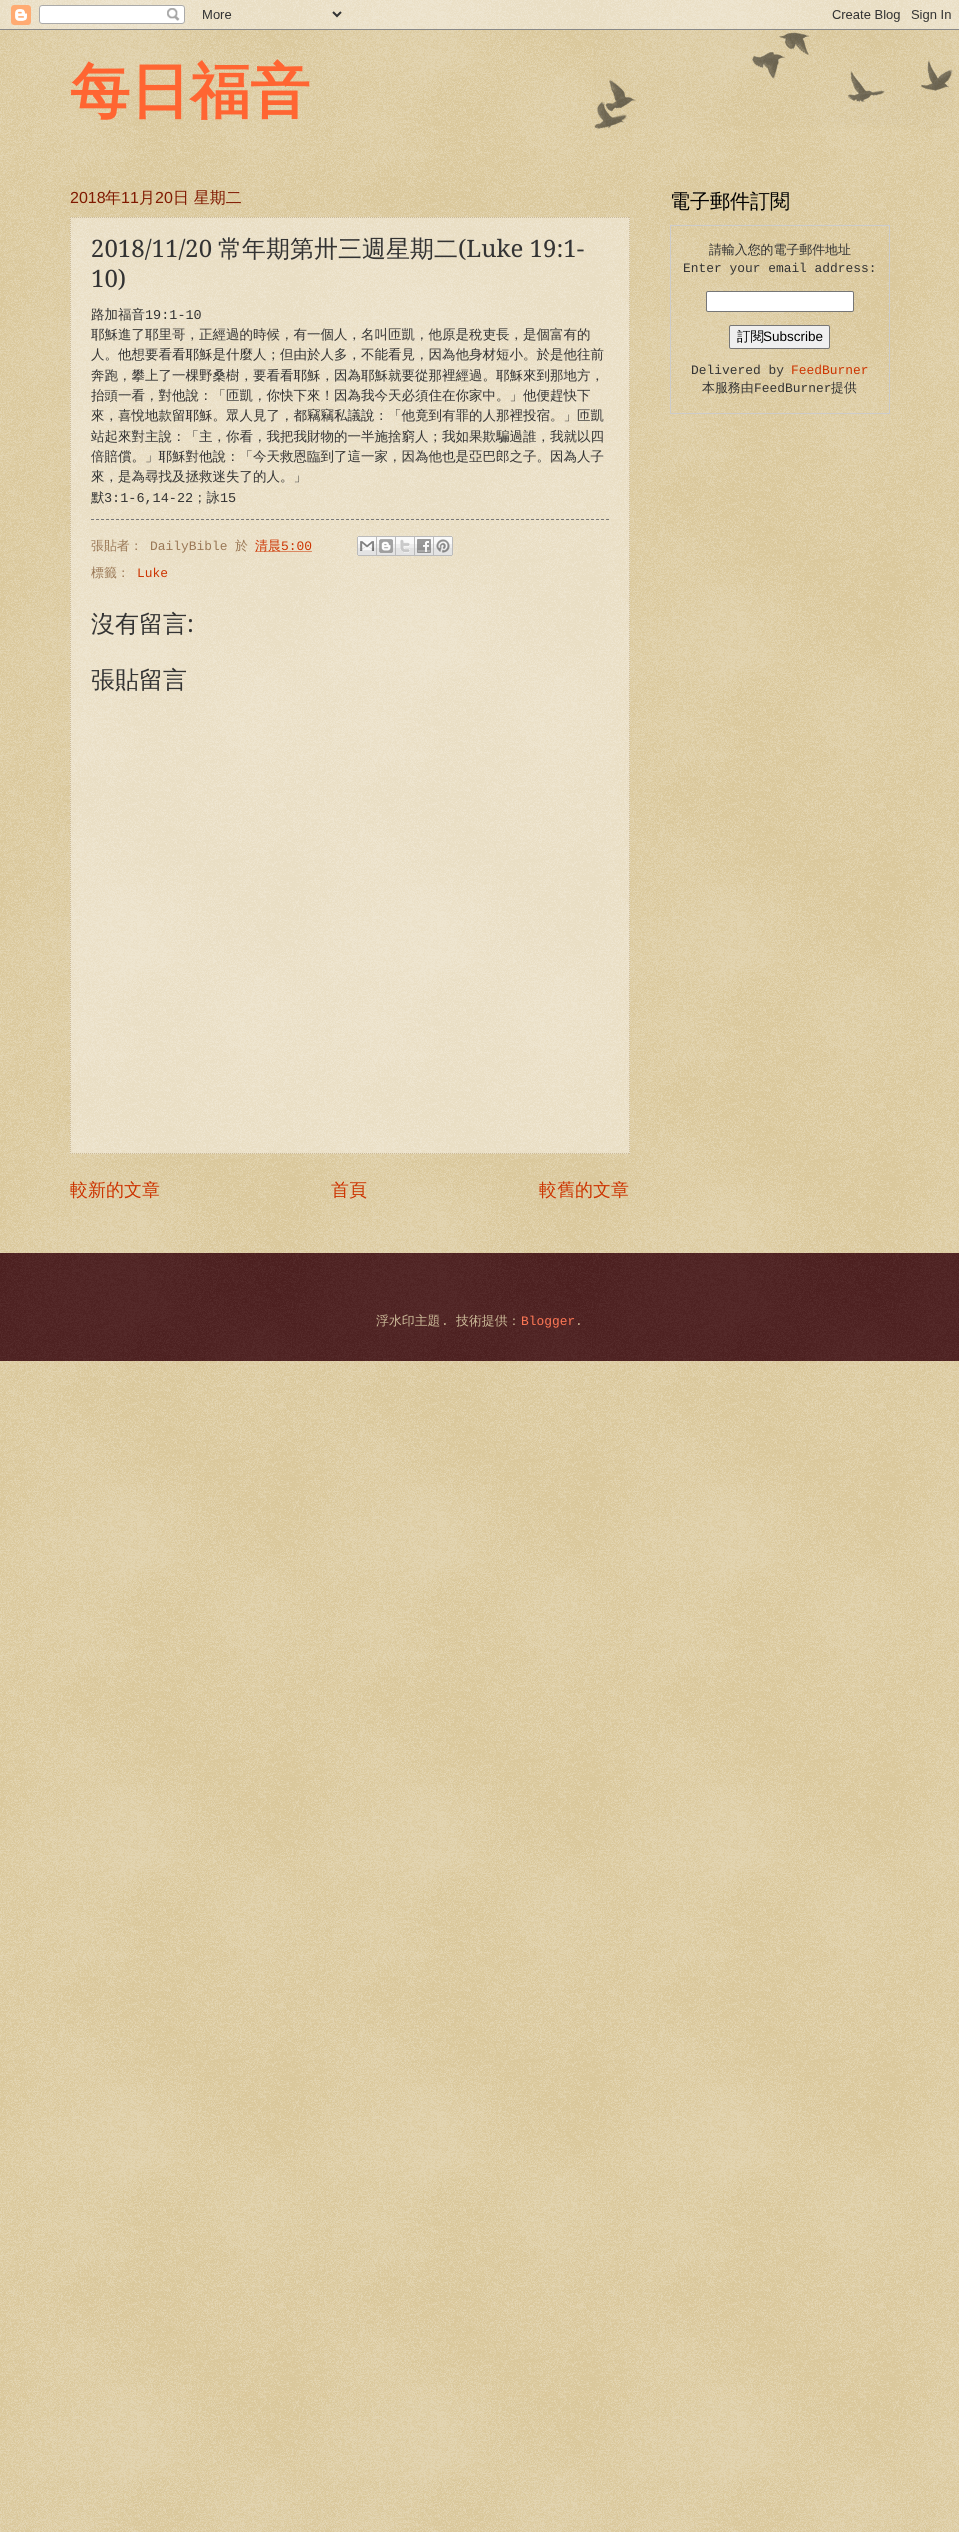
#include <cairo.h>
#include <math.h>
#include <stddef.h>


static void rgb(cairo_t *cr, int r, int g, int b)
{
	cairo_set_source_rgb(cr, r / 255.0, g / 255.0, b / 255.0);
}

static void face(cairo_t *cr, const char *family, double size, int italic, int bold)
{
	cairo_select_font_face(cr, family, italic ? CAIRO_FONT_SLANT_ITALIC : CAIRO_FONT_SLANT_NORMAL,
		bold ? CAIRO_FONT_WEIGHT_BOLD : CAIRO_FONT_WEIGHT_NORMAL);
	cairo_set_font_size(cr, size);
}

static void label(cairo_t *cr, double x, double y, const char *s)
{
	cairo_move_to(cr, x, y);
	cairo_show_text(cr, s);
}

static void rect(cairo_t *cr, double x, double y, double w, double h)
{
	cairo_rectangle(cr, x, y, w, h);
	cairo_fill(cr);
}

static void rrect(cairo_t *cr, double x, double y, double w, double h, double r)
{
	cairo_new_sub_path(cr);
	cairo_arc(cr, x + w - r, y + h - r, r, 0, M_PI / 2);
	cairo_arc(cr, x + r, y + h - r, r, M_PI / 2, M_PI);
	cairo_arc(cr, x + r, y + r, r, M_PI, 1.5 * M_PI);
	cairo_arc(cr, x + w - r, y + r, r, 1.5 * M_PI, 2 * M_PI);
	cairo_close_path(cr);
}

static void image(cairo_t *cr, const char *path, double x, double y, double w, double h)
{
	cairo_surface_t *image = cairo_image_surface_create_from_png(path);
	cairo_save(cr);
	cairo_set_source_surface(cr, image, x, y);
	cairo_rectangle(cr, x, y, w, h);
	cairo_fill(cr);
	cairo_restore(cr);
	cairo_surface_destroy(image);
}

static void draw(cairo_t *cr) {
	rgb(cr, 192, 161, 84);
	cairo_paint(cr);
	image(cr, "image0.png", 0, 0, 959, 2532);
	image(cr, "image1.png", 0, 0, 959, 30);
	image(cr, "image2.png", 594, 32, 359, 97);
	face(cr, "WenQuanYi Zen Hei", 60, 0, 1);
	rgb(cr, 255, 101, 50);
	label(cr, 70, 112, "每日福音");
	face(cr, "Liberation Sans", 16, 0, 0);
	rgb(cr, 127, 25, 0);
	label(cr, 70, 203, "2018");
	face(cr, "WenQuanYi Zen Hei Medium", 16, 0, 0);
	label(cr, 105, 203, "年");
	face(cr, "Liberation Sans", 16, 0, 0);
	label(cr, 121, 203, "11");
	face(cr, "WenQuanYi Zen Hei Medium", 16, 0, 0);
	label(cr, 139, 203, "月");
	face(cr, "Liberation Sans", 16, 0, 0);
	label(cr, 155, 203, "20");
	face(cr, "WenQuanYi Zen Hei Medium", 16, 0, 0);
	label(cr, 173, 203, "日 星期二");
	cairo_set_source_rgba(cr, 1, 1, 1, 0.4);
	rect(cr, 70, 217, 560, 937);
	cairo_new_path(cr);
	cairo_move_to(cr, 70, 217.5);
	cairo_line_to(cr, 630, 217.5);
	rgb(cr, 204, 187, 153);
	cairo_set_line_width(cr, 1);
	cairo_set_dash(cr, (double[]){1, 1}, 2, 0);
	cairo_stroke(cr);
	cairo_new_path(cr);
	cairo_move_to(cr, 629.5, 217);
	cairo_line_to(cr, 629.5, 1154);
	cairo_stroke(cr);
	cairo_new_path(cr);
	cairo_move_to(cr, 70, 1153.5);
	cairo_line_to(cr, 630, 1153.5);
	cairo_stroke(cr);
	cairo_new_path(cr);
	cairo_move_to(cr, 70.5, 217);
	cairo_line_to(cr, 70.5, 1154);
	cairo_stroke(cr);
	face(cr, "Droid Serif", 24, 0, 0);
	rgb(cr, 51, 51, 51);
	label(cr, 91, 257, "2018/11/20");
	face(cr, "WenQuanYi Zen Hei Medium", 24, 0, 0);
	label(cr, 218, 257, "常年期第卅三週星期二");
	face(cr, "Droid Serif", 24, 0, 0);
	label(cr, 458, 257, "(Luke 19:1-");
	label(cr, 91, 287, "10)");
	face(cr, "WenQuanYi Zen Hei Medium", 13.5, 0, 0);
	label(cr, 91, 319, "路加福音");
	face(cr, "Liberation Mono", 13.5, 0, 0);
	label(cr, 145, 319, "19:1-10");
	face(cr, "WenQuanYi Zen Hei Medium", 13.5, 0, 0);
	label(cr, 91, 339, "耶穌進了耶里哥，正經過的時候，有一個人，名叫匝凱，他原是稅吏長，是個富有的");
	label(cr, 91, 359, "人。他想要看看耶穌是什麼人；但由於人多，不能看見，因為他身材短小。於是他往前");
	label(cr, 91, 380, "奔跑，攀上了一棵野桑樹，要看看耶穌，因為耶穌就要從那裡經過。耶穌來到那地方，");
	label(cr, 91, 400, "抬頭一看，對他說：「匝凱，你快下來！因為我今天必須住在你家中。」他便趕快下");
	label(cr, 91, 420, "來，喜悅地款留耶穌。眾人見了，都竊竊私議說：「他竟到有罪的人那裡投宿。」匝凱");
	label(cr, 91, 441, "站起來對主說：「主，你看，我把我財物的一半施捨窮人；我如果欺騙過誰，我就以四");
	label(cr, 91, 461, "倍賠償。」耶穌對他說：「今天救恩臨到了這一家，因為他也是亞巴郎之子。因為人子");
	label(cr, 91, 481, "來，是為尋找及拯救迷失了的人。」");
	label(cr, 91, 502, "默");
	face(cr, "Liberation Mono", 13.5, 0, 0);
	label(cr, 104, 502, "3:1-6,14-22");
	face(cr, "WenQuanYi Zen Hei Medium", 13.5, 0, 0);
	label(cr, 193, 502, "；詠");
	face(cr, "Liberation Mono", 13.5, 0, 0);
	label(cr, 220, 502, "15");
	cairo_new_path(cr);
	cairo_move_to(cr, 91, 519.5);
	cairo_line_to(cr, 609, 519.5);
	rgb(cr, 119, 119, 119);
	cairo_set_dash(cr, (double[]){3, 2}, 2, 0);
	cairo_stroke(cr);
	face(cr, "WenQuanYi Zen Hei Medium", 12.9, 0, 0);
	rgb(cr, 153, 119, 85);
	label(cr, 91, 550, "張貼者：");
	face(cr, "Liberation Mono", 12.9, 0, 0);
	label(cr, 150, 550, "DailyBible");
	face(cr, "WenQuanYi Zen Hei Medium", 12.9, 0, 0);
	label(cr, 235, 550, "於");
	cairo_new_path(cr);
	cairo_move_to(cr, 255.5, 551.5);
	cairo_line_to(cr, 312, 551.5);
	rgb(cr, 204, 51, 0);
	cairo_set_dash(cr, (double[]){1, 1}, 2, 0);
	cairo_stroke(cr);
	label(cr, 255, 550, "清晨");
	face(cr, "Liberation Mono", 12.9, 0, 0);
	label(cr, 281, 550, "5:00");
	image(cr, "image3.png", 357, 536, 20, 20);
	image(cr, "image4.png", 377, 536, 19, 20);
	image(cr, "image5.png", 396, 536, 19, 20);
	image(cr, "image6.png", 415, 536, 19, 20);
	image(cr, "image7.png", 434, 536, 19, 20);
	face(cr, "WenQuanYi Zen Hei Medium", 12.9, 0, 0);
	rgb(cr, 153, 119, 85);
	label(cr, 91, 577, "標籤：");
	face(cr, "Liberation Mono", 12.9, 0, 0);
	rgb(cr, 204, 51, 0);
	label(cr, 137, 577, "Luke");
	face(cr, "WenQuanYi Zen Hei Medium", 24, 0, 0);
	rgb(cr, 51, 51, 51);
	label(cr, 91, 632, "沒有留言");
	face(cr, "Droid Serif", 24, 0, 0);
	label(cr, 187, 632, ":");
	face(cr, "WenQuanYi Zen Hei Medium", 24, 0, 0);
	label(cr, 91, 688, "張貼留言");
	face(cr, "WenQuanYi Zen Hei Medium", 18, 0, 0);
	rgb(cr, 204, 51, 0);
	label(cr, 70, 1196, "較新的文章");
	label(cr, 331, 1196, "首頁");
	label(cr, 539, 1196, "較舊的文章");
	face(cr, "WenQuanYi Zen Hei Medium", 20, 0, 0);
	rgb(cr, 0, 0, 0);
	label(cr, 670, 208, "電子郵件訂閱");
	cairo_rectangle(cr, 670.5, 225.5, 219, 188);
	rgb(cr, 204, 204, 204);
	cairo_set_dash(cr, NULL, 0, 0);
	cairo_stroke(cr);
	face(cr, "WenQuanYi Zen Hei Medium", 12.9, 0, 0);
	rgb(cr, 51, 51, 51);
	label(cr, 709, 254, "請輸入您的電子郵件地址");
	face(cr, "Liberation Mono", 12.9, 0, 0);
	label(cr, 683, 272, "Enter your email address:");
	rgb(cr, 255, 255, 255);
	rrect(cr, 706.5, 291.5, 147, 20, 1.5);
	cairo_fill_preserve(cr);
	rgb(cr, 118, 118, 118);
	cairo_stroke(cr);
	rgb(cr, 239, 239, 239);
	rrect(cr, 729.5, 325.5, 100, 23, 1.5);
	cairo_fill_preserve(cr);
	rgb(cr, 118, 118, 118);
	cairo_stroke(cr);
	face(cr, "WenQuanYi Zen Hei Medium", 13.5, 0, 0);
	rgb(cr, 0, 0, 0);
	label(cr, 737, 341, "訂閱");
	face(cr, "Liberation Sans", 13.5, 0, 0);
	label(cr, 763, 341, "Subscribe");
	face(cr, "Liberation Mono", 12.9, 0, 0);
	rgb(cr, 51, 51, 51);
	label(cr, 691, 374, "Delivered by");
	rgb(cr, 204, 51, 0);
	label(cr, 791, 374, "FeedBurner");
	face(cr, "WenQuanYi Zen Hei Medium", 12.9, 0, 0);
	rgb(cr, 51, 51, 51);
	label(cr, 702, 392, "本服務由");
	face(cr, "Liberation Mono", 12.9, 0, 0);
	label(cr, 754, 392, "FeedBurner");
	face(cr, "WenQuanYi Zen Hei Medium", 12.9, 0, 0);
	label(cr, 831, 392, "提供");
	rgb(cr, 51, 0, 0);
	rect(cr, 0, 1253, 959, 108);
	image(cr, "image8.png", 0, 1253, 959, 108);
	rgb(cr, 204, 187, 153);
	label(cr, 376, 1325, "浮水印主題");
	face(cr, "Liberation Mono", 12.9, 0, 0);
	label(cr, 441, 1325, ".");
	face(cr, "WenQuanYi Zen Hei Medium", 12.9, 0, 0);
	label(cr, 456, 1325, "技術提供：");
	face(cr, "Liberation Mono", 12.9, 0, 0);
	rgb(cr, 255, 119, 85);
	label(cr, 521, 1325, "Blogger");
	rgb(cr, 204, 187, 153);
	label(cr, 575, 1325, ".");
}

int main(void) {
	cairo_surface_t *surface = cairo_image_surface_create(CAIRO_FORMAT_RGB24, 959, 2532);
	cairo_t *cr = cairo_create(surface);
	cairo_font_options_t *options = cairo_font_options_create();
	cairo_font_options_set_hint_metrics(options, CAIRO_HINT_METRICS_OFF);
	cairo_font_options_set_hint_style(options, CAIRO_HINT_STYLE_NONE);
	cairo_set_font_options(cr, options);
	cairo_set_miter_limit(cr, 4);
	draw(cr);
	cairo_surface_write_to_png(surface, "render.png");
	cairo_font_options_destroy(options);
	cairo_destroy(cr);
	cairo_surface_destroy(surface);
	return 0;
}
